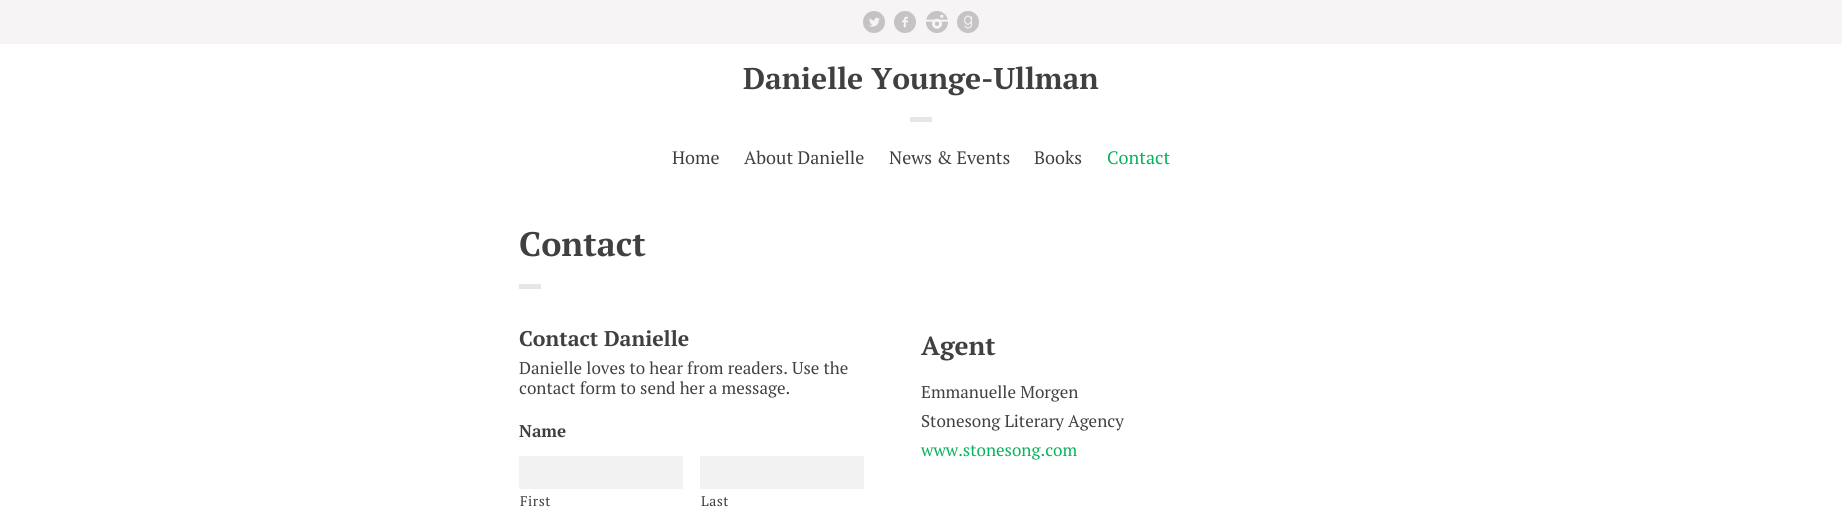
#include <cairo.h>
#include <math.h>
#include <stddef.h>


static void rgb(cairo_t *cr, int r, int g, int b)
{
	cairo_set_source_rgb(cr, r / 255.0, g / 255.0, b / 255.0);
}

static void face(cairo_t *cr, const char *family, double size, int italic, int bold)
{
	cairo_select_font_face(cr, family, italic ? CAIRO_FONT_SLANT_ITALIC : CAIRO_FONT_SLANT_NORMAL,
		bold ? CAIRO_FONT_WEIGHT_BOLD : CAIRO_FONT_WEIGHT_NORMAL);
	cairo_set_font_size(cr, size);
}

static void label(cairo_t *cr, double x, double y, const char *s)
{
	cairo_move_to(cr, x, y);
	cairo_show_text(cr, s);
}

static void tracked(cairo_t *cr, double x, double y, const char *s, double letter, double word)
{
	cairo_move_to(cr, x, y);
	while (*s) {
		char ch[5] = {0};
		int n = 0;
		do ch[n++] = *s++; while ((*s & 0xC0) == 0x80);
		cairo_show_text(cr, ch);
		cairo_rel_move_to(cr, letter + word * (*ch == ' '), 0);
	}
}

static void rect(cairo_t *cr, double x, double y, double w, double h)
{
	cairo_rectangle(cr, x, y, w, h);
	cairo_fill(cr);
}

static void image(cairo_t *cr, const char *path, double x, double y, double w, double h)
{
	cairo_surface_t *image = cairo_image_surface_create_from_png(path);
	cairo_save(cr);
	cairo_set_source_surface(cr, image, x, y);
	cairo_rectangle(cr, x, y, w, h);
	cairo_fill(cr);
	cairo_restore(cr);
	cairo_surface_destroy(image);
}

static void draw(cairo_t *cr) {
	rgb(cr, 255, 255, 255);
	cairo_paint(cr);
	rgb(cr, 246, 244, 244);
	rect(cr, 0, 0, 1842, 44);
	image(cr, "image0.png", 863, 11, 22, 22);
	image(cr, "image1.png", 894, 11, 22, 22);
	image(cr, "image2.png", 926, 11, 22, 22);
	image(cr, "image3.png", 957, 11, 22, 22);
	face(cr, "PT Serif", 30, 0, 1);
	rgb(cr, 64, 64, 64);
	label(cr, 743, 89, "Danielle Younge-Ullman");
	rgb(cr, 230, 230, 230);
	rect(cr, 910, 117, 22, 5);
	face(cr, "PT Serif", 18, 0, 0);
	rgb(cr, 64, 64, 64);
	label(cr, 672, 164, "Home");
	label(cr, 744, 164, "About Danielle");
	label(cr, 889, 164, "News & Events");
	label(cr, 1034, 164, "Books");
	rgb(cr, 6, 178, 91);
	label(cr, 1107, 164, "Contact");
	face(cr, "PT Serif", 34, 0, 1);
	rgb(cr, 64, 64, 64);
	label(cr, 519, 256, "Contact");
	rgb(cr, 230, 230, 230);
	rect(cr, 519, 284, 22, 5);
	face(cr, "PT Serif", 21.25, 0, 1);
	rgb(cr, 64, 64, 64);
	label(cr, 519, 346, "Contact Danielle");
	face(cr, "PT Serif", 17, 0, 0);
	label(cr, 519, 374, "Danielle loves to hear from readers. Use the");
	label(cr, 519, 394, "contact form to send her a message.");
	face(cr, "PT Serif", 17, 0, 1);
	label(cr, 519, 437, "Name");
	rgb(cr, 242, 242, 242);
	rect(cr, 519, 456, 164, 33);
	face(cr, "PT Serif", 14, 0, 0);
	rgb(cr, 64, 64, 64);
	tracked(cr, 520, 506, "First", 0.5, 0);
	rgb(cr, 242, 242, 242);
	rect(cr, 700, 456, 164, 33);
	rgb(cr, 64, 64, 64);
	tracked(cr, 701, 506, "Last", 0.5, 0);
	face(cr, "PT Serif", 26, 0, 1);
	label(cr, 921, 355, "Agent");
	face(cr, "PT Serif", 17, 0, 0);
	label(cr, 921, 398, "Emmanuelle Morgen");
	label(cr, 921, 427, "Stonesong Literary Agency");
	rgb(cr, 6, 178, 91);
	label(cr, 921, 456, "www.stonesong.com");
}

int main(void) {
	cairo_surface_t *surface = cairo_image_surface_create(CAIRO_FORMAT_RGB24, 1842, 521);
	cairo_t *cr = cairo_create(surface);
	cairo_font_options_t *options = cairo_font_options_create();
	cairo_font_options_set_hint_metrics(options, CAIRO_HINT_METRICS_OFF);
	cairo_font_options_set_hint_style(options, CAIRO_HINT_STYLE_NONE);
	cairo_set_font_options(cr, options);
	cairo_set_miter_limit(cr, 4);
	draw(cr);
	cairo_surface_write_to_png(surface, "render.png");
	cairo_font_options_destroy(options);
	cairo_destroy(cr);
	cairo_surface_destroy(surface);
	return 0;
}
